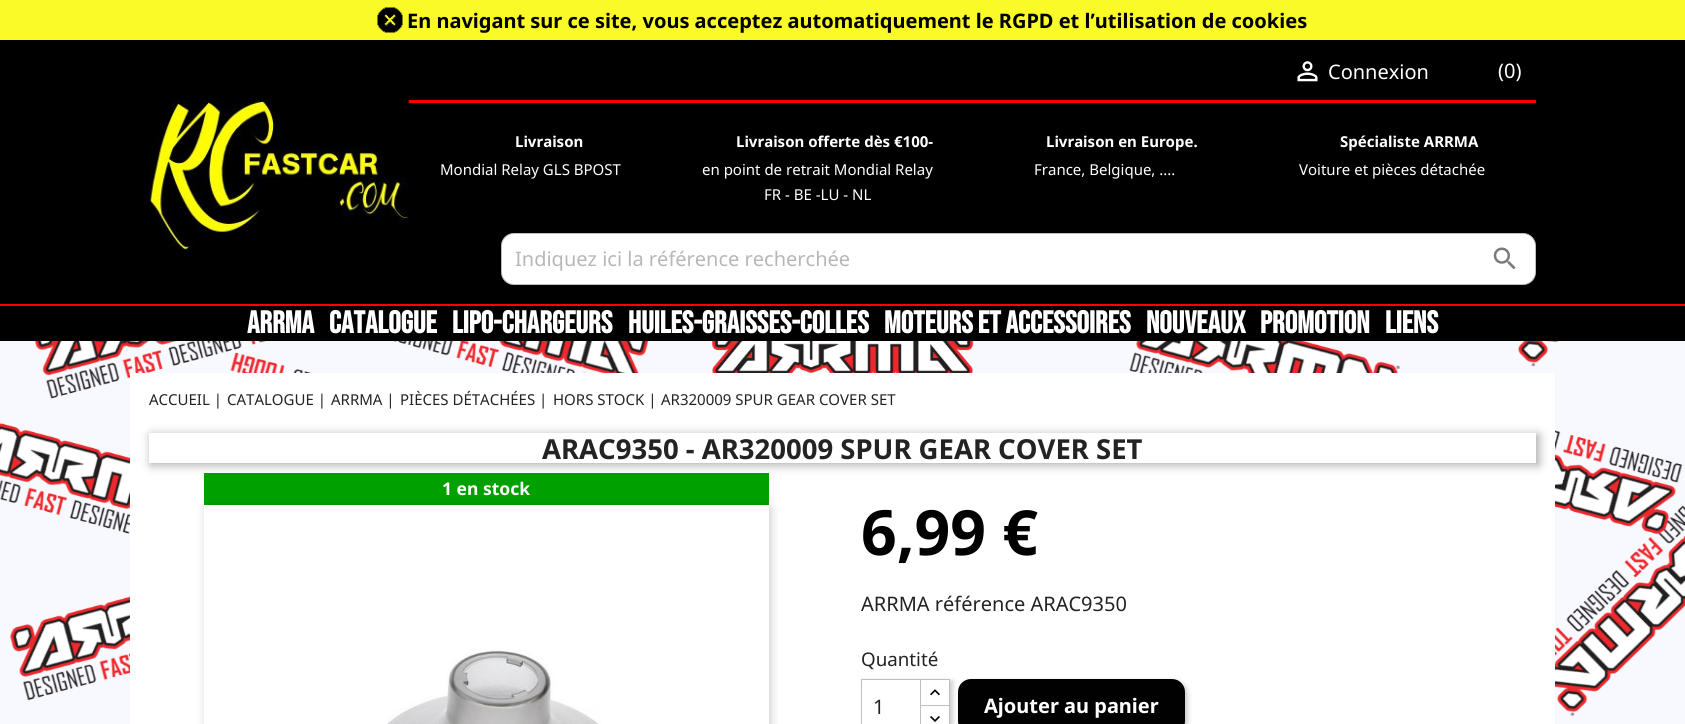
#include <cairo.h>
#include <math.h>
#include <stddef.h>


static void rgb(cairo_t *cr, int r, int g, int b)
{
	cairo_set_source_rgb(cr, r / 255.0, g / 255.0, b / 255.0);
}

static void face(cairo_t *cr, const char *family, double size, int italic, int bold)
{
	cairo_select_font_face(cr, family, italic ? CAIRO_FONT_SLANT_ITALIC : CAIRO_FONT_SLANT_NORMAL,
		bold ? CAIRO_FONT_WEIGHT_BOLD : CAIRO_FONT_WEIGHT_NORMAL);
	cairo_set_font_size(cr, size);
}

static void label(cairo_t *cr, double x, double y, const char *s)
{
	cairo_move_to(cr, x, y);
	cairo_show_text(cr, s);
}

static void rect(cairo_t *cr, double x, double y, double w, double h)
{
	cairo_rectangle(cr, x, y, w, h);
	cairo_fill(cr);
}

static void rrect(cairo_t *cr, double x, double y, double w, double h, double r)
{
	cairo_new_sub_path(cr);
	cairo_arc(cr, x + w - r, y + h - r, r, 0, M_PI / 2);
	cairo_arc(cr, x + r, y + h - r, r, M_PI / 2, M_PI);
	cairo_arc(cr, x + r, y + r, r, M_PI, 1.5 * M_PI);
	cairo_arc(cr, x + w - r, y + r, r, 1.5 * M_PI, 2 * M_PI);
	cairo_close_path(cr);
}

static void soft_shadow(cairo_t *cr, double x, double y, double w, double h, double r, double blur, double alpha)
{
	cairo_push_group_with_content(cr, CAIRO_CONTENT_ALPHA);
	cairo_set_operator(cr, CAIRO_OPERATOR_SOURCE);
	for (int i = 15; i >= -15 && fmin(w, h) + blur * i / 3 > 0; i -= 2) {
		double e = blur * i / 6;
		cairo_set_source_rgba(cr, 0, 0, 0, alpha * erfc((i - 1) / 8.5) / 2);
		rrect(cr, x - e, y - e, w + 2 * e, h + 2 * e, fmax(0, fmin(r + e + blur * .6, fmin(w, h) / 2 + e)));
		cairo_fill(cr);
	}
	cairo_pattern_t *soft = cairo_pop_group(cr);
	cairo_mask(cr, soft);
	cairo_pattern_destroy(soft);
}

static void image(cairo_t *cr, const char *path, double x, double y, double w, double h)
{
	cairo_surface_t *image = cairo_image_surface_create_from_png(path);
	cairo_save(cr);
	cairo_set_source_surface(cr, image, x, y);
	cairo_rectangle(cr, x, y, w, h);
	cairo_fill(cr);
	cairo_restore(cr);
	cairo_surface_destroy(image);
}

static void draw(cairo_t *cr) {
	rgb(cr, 0, 0, 0);
	cairo_paint(cr);
	rgb(cr, 250, 250, 40);
	rect(cr, 0, 0, 1685, 40);
	image(cr, "image0.png", 377, 7, 26, 26);
	face(cr, "Noto Sans", 20, 0, 1);
	rgb(cr, 1, 1, 1);
	label(cr, 407, 28, "En navigant sur ce site, vous acceptez automatiquement le RGPD et l’utilisation de cookies");
	image(cr, "image1.png", 1297, 61, 21, 21);
	face(cr, "Noto Sans", 20, 0, 0);
	rgb(cr, 255, 255, 255);
	label(cr, 1328, 79, "Connexion");
	label(cr, 1498, 78, "(0)");
	rgb(cr, 255, 0, 0);
	rect(cr, 408, 100, 1128, 3);
	image(cr, "image2.png", 149, 100, 260, 150);
	face(cr, "Noto Sans", 15, 0, 1);
	rgb(cr, 255, 255, 255);
	label(cr, 515, 147, "Livraison");
	face(cr, "Noto Sans", 15, 0, 0);
	label(cr, 440, 175, "Mondial Relay GLS BPOST");
	face(cr, "Noto Sans", 15, 0, 1);
	label(cr, 736, 147, "Livraison offerte dès €100-");
	face(cr, "Noto Sans", 15, 0, 0);
	label(cr, 702, 175, "en point de retrait Mondial Relay");
	label(cr, 764, 200, "FR - BE -LU - NL");
	face(cr, "Noto Sans", 15, 0, 1);
	label(cr, 1046, 147, "Livraison en Europe.");
	face(cr, "Noto Sans", 15, 0, 0);
	label(cr, 1034, 175, "France, Belgique, ....");
	face(cr, "Noto Sans", 15, 0, 1);
	label(cr, 1340, 147, "Spécialiste ARRMA");
	face(cr, "Noto Sans", 15, 0, 0);
	label(cr, 1299, 175, "Voiture et pièces détachée");
	rrect(cr, 501, 233, 1035, 52, 13);
	cairo_fill(cr);
	rrect(cr, 501.5, 233.5, 1034, 51, 12.5);
	cairo_set_source_rgba(cr, 0, 0, 0, 0.25);
	cairo_set_line_width(cr, 1);
	cairo_stroke(cr);
	face(cr, "Noto Sans", 20, 0, 0);
	rgb(cr, 183, 183, 183);
	label(cr, 515, 266, "Indiquez ici la référence recherchée");
	image(cr, "image3.png", 1493, 247, 23, 23);
	rgb(cr, 255, 0, 0);
	rect(cr, 0, 304, 1685, 2);
	face(cr, "Bebas Neue", 31.25, 0, 1);
	rgb(cr, 255, 255, 255);
	label(cr, 247, 333, "ARRMA");
	label(cr, 329, 333, "CATALOGUE");
	label(cr, 452, 333, "LIPO-CHARGEURS");
	label(cr, 628, 333, "HUILES-GRAISSES-COLLES");
	label(cr, 884, 333, "MOTEURS ET ACCESSOIRES");
	label(cr, 1146, 333, "NOUVEAUX");
	label(cr, 1260, 333, "PROMOTION");
	label(cr, 1385, 333, "LIENS");
	rgb(cr, 248, 248, 255);
	rect(cr, 0, 341, 1685, 383);
	image(cr, "image4.png", 0, 341, 1685, 375);
	rgb(cr, 255, 255, 255);
	rect(cr, 130, 373, 1425, 351);
	face(cr, "Noto Sans", 15, 0, 0);
	rgb(cr, 35, 35, 35);
	label(cr, 149, 405, "ACCUEIL |");
	label(cr, 227, 405, "CATALOGUE |");
	label(cr, 331, 405, "ARRMA |");
	label(cr, 400, 405, "PIÈCES DÉTACHÉES |");
	label(cr, 553, 405, "HORS STOCK |");
	label(cr, 661, 405, "AR320009 SPUR GEAR COVER SET");
	cairo_save(cr);
	cairo_set_fill_rule(cr, CAIRO_FILL_RULE_EVEN_ODD);
	cairo_new_path(cr);
	cairo_move_to(cr, 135, 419);
	cairo_line_to(cr, 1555, 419);
	cairo_line_to(cr, 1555, 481);
	cairo_line_to(cr, 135, 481);
	cairo_close_path(cr);
	cairo_move_to(cr, 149, 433);
	cairo_line_to(cr, 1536, 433);
	cairo_line_to(cr, 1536, 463);
	cairo_line_to(cr, 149, 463);
	cairo_close_path(cr);
	cairo_clip(cr);
	rgb(cr, 170, 170, 170);
	soft_shadow(cr, 151, 435, 1388, 30, 0, 5, 1);
	cairo_restore(cr);
	face(cr, "Noto Sans", 27.5, 0, 1);
	label(cr, 542, 459, "ARAC9350 - AR320009 SPUR GEAR COVER SET");
	rgb(cr, 0, 160, 0);
	rect(cr, 204, 473, 565, 32);
	face(cr, "Noto Sans", 17.5, 0, 1);
	rgb(cr, 255, 255, 255);
	label(cr, 442, 495, "1 en stock");
	rgb(cr, 0, 0, 0);
	soft_shadow(cr, 206, 508, 565, 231, 0, 5, 0.2);
	rgb(cr, 255, 255, 255);
	rect(cr, 204, 505, 565, 219);
	image(cr, "image5.png", 387, 649, 214, 75);
	face(cr, "Noto Sans", 62.5, 0, 1);
	rgb(cr, 1, 1, 1);
	label(cr, 861, 555, "6,99 €");
	face(cr, "Noto Sans", 20, 0, 0);
	rgb(cr, 35, 35, 35);
	label(cr, 861, 611, "ARRMA référence ARAC9350");
	face(cr, "Noto Sans", 18.75, 0, 0);
	label(cr, 861, 666, "Quantité");
	rgb(cr, 0, 0, 0);
	soft_shadow(cr, 960, 681, 228, 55, 13, 2.5, 0.2);
	rgb(cr, 1, 1, 1);
	rrect(cr, 958, 679, 227, 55, 13);
	cairo_fill(cr);
	cairo_save(cr);
	cairo_set_fill_rule(cr, CAIRO_FILL_RULE_EVEN_ODD);
	cairo_new_path(cr);
	cairo_move_to(cr, 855, 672);
	cairo_line_to(cr, 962, 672);
	cairo_line_to(cr, 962, 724);
	cairo_line_to(cr, 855, 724);
	cairo_close_path(cr);
	cairo_move_to(cr, 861, 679);
	cairo_line_to(cr, 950, 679);
	cairo_line_to(cr, 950, 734);
	cairo_line_to(cr, 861, 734);
	cairo_close_path(cr);
	cairo_clip(cr);
	rgb(cr, 0, 0, 0);
	soft_shadow(cr, 864, 681, 89, 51, 0, 2.5, 0.2);
	cairo_restore(cr);
	cairo_rectangle(cr, 920.5, 679.5, 29, 28);
	rgb(cr, 191, 191, 191);
	cairo_stroke(cr);
	rgb(cr, 255, 255, 255);
	rect(cr, 921, 707, 28, 1);
	cairo_rectangle(cr, 920.5, 705.5, 29, 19);
	rgb(cr, 191, 191, 191);
	cairo_stroke(cr);
	cairo_rectangle(cr, 861.5, 679.5, 59, 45);
	cairo_stroke(cr);
	face(cr, "Noto Sans", 20, 0, 0);
	rgb(cr, 35, 35, 35);
	label(cr, 873, 714, "1");
	image(cr, "image6.png", 930, 689, 10, 7);
	image(cr, "image7.png", 930, 716, 10, 6);
	face(cr, "Noto Sans", 20, 0, 1);
	rgb(cr, 255, 255, 255);
	label(cr, 984, 713, "Ajouter au panier");
}

int main(void) {
	cairo_surface_t *surface = cairo_image_surface_create(CAIRO_FORMAT_RGB24, 1685, 724);
	cairo_t *cr = cairo_create(surface);
	cairo_font_options_t *options = cairo_font_options_create();
	cairo_font_options_set_hint_metrics(options, CAIRO_HINT_METRICS_OFF);
	cairo_font_options_set_hint_style(options, CAIRO_HINT_STYLE_NONE);
	cairo_set_font_options(cr, options);
	cairo_set_miter_limit(cr, 4);
	draw(cr);
	cairo_surface_write_to_png(surface, "render.png");
	cairo_font_options_destroy(options);
	cairo_destroy(cr);
	cairo_surface_destroy(surface);
	return 0;
}
